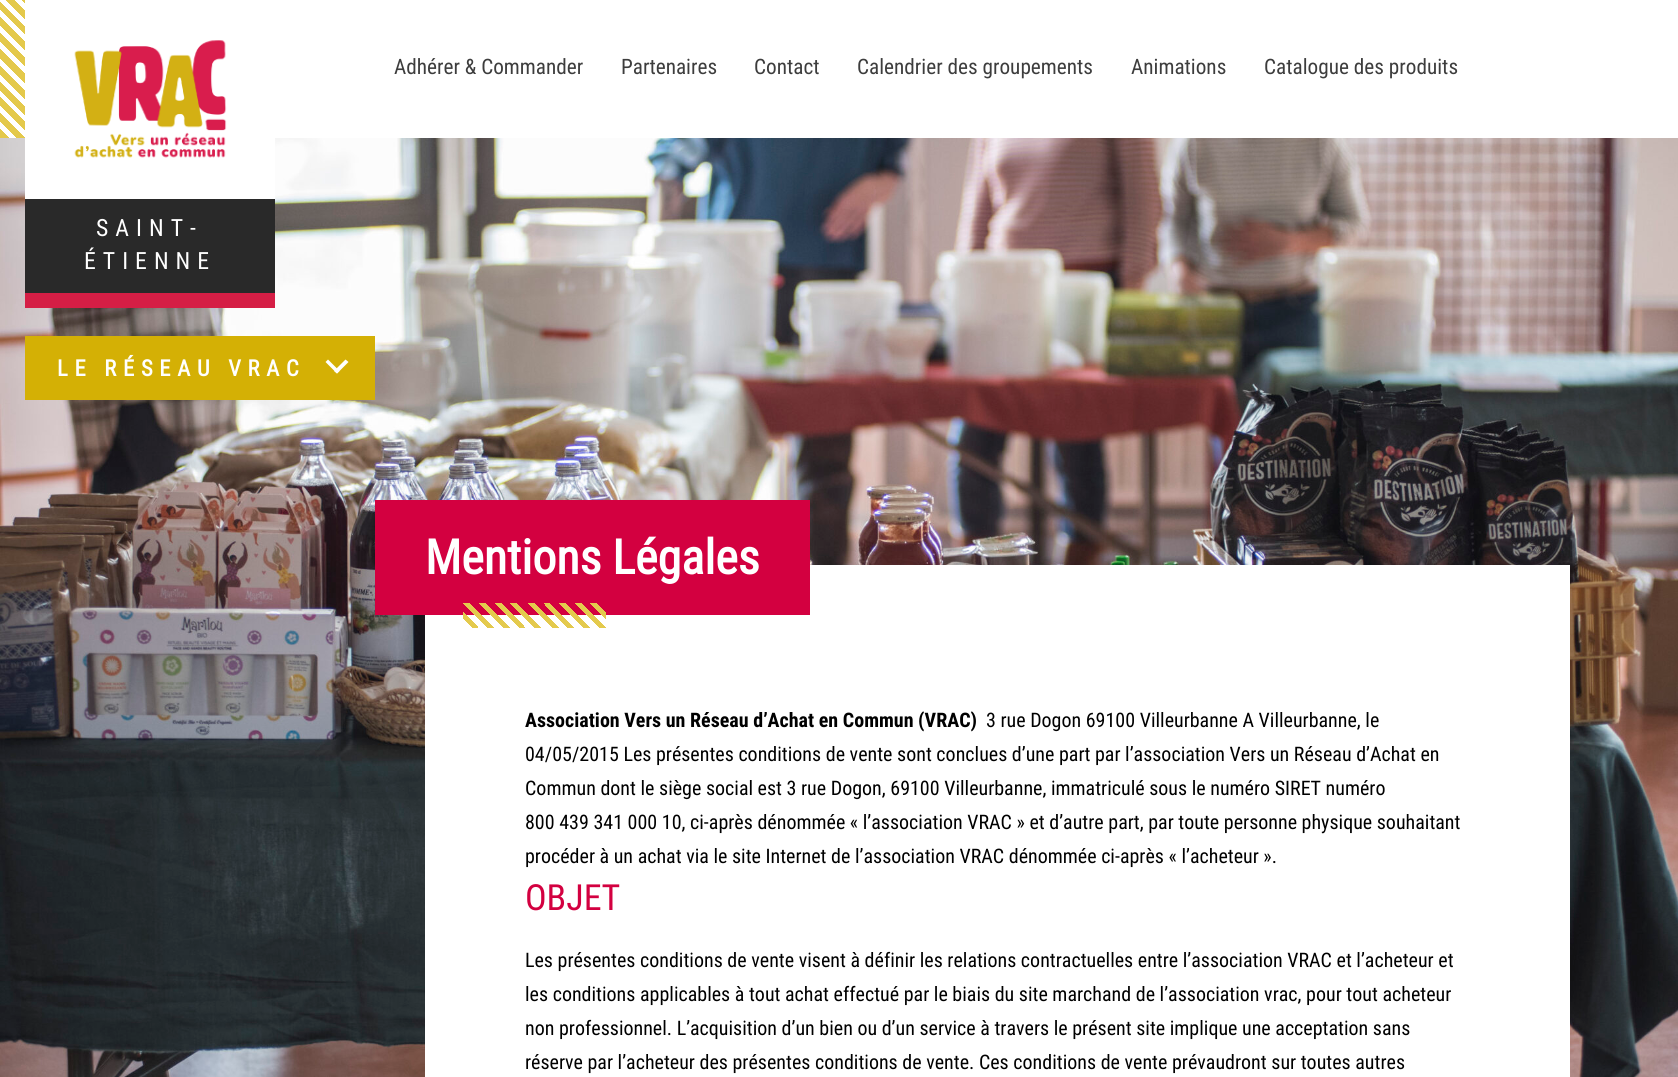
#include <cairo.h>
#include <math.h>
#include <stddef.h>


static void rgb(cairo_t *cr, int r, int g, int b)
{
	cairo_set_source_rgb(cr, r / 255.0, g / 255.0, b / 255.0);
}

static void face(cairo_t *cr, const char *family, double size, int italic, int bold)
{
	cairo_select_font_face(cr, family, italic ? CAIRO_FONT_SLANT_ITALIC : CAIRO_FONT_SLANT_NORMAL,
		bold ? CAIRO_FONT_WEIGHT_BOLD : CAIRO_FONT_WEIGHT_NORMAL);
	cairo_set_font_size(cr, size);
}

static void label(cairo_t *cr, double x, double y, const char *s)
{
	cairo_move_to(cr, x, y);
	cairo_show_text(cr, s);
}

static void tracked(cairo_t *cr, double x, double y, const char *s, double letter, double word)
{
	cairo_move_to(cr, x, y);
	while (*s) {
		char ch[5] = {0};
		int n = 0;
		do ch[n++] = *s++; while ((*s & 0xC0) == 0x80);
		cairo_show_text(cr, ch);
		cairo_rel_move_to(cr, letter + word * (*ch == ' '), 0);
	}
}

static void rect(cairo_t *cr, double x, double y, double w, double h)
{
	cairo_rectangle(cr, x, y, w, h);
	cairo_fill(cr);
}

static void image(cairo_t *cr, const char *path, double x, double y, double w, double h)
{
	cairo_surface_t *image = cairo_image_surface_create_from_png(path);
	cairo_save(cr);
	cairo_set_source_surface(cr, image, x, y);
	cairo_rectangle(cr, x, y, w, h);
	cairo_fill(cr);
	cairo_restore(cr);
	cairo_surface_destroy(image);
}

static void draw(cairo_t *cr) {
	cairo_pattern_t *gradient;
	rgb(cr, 255, 255, 255);
	cairo_paint(cr);
	image(cr, "image0.png", 0, 138, 1678, 939);
	gradient = cairo_pattern_create_linear(-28, 109, 59, 22);
	cairo_pattern_add_color_stop_rgba(gradient, 0, 0.894, 0.788, 0.294, 1);
	cairo_pattern_add_color_stop_rgba(gradient, 0.05, 0.894, 0.788, 0.294, 1);
	cairo_pattern_add_color_stop_rgba(gradient, 0.05, 1, 1, 1, 1);
	cairo_pattern_add_color_stop_rgba(gradient, 0.09, 1, 1, 1, 1);
	cairo_pattern_add_color_stop_rgba(gradient, 0.09, 0.894, 0.788, 0.294, 1);
	cairo_pattern_add_color_stop_rgba(gradient, 0.14, 0.894, 0.788, 0.294, 1);
	cairo_pattern_add_color_stop_rgba(gradient, 0.14, 1, 1, 1, 1);
	cairo_pattern_add_color_stop_rgba(gradient, 0.18, 1, 1, 1, 1);
	cairo_pattern_add_color_stop_rgba(gradient, 0.18, 0.894, 0.788, 0.294, 1);
	cairo_pattern_add_color_stop_rgba(gradient, 0.23, 0.894, 0.788, 0.294, 1);
	cairo_pattern_add_color_stop_rgba(gradient, 0.23, 1, 1, 1, 1);
	cairo_pattern_add_color_stop_rgba(gradient, 0.27, 1, 1, 1, 1);
	cairo_pattern_add_color_stop_rgba(gradient, 0.27, 0.894, 0.788, 0.294, 1);
	cairo_pattern_add_color_stop_rgba(gradient, 0.32, 0.894, 0.788, 0.294, 1);
	cairo_pattern_add_color_stop_rgba(gradient, 0.32, 1, 1, 1, 1);
	cairo_pattern_add_color_stop_rgba(gradient, 0.36, 1, 1, 1, 1);
	cairo_pattern_add_color_stop_rgba(gradient, 0.36, 0.894, 0.788, 0.294, 1);
	cairo_pattern_add_color_stop_rgba(gradient, 0.41, 0.894, 0.788, 0.294, 1);
	cairo_pattern_add_color_stop_rgba(gradient, 0.41, 1, 1, 1, 1);
	cairo_pattern_add_color_stop_rgba(gradient, 0.45, 1, 1, 1, 1);
	cairo_pattern_add_color_stop_rgba(gradient, 0.45, 0.894, 0.788, 0.294, 1);
	cairo_pattern_add_color_stop_rgba(gradient, 0.51, 0.894, 0.788, 0.294, 1);
	cairo_pattern_add_color_stop_rgba(gradient, 0.51, 1, 1, 1, 1);
	cairo_pattern_add_color_stop_rgba(gradient, 0.55, 1, 1, 1, 1);
	cairo_pattern_add_color_stop_rgba(gradient, 0.55, 0.894, 0.788, 0.294, 1);
	cairo_pattern_add_color_stop_rgba(gradient, 0.6, 0.894, 0.788, 0.294, 1);
	cairo_pattern_add_color_stop_rgba(gradient, 0.6, 1, 1, 1, 1);
	cairo_pattern_add_color_stop_rgba(gradient, 0.64, 1, 1, 1, 1);
	cairo_pattern_add_color_stop_rgba(gradient, 0.64, 0.894, 0.788, 0.294, 1);
	cairo_pattern_add_color_stop_rgba(gradient, 0.69, 0.894, 0.788, 0.294, 1);
	cairo_pattern_add_color_stop_rgba(gradient, 0.69, 1, 1, 1, 1);
	cairo_pattern_add_color_stop_rgba(gradient, 0.73, 1, 1, 1, 1);
	cairo_pattern_add_color_stop_rgba(gradient, 0.73, 0.894, 0.788, 0.294, 1);
	cairo_pattern_add_color_stop_rgba(gradient, 0.78, 0.894, 0.788, 0.294, 1);
	cairo_pattern_add_color_stop_rgba(gradient, 0.78, 1, 1, 1, 1);
	cairo_pattern_add_color_stop_rgba(gradient, 0.82, 1, 1, 1, 1);
	cairo_pattern_add_color_stop_rgba(gradient, 0.82, 0.894, 0.788, 0.294, 1);
	cairo_pattern_add_color_stop_rgba(gradient, 0.87, 0.894, 0.788, 0.294, 1);
	cairo_pattern_add_color_stop_rgba(gradient, 0.87, 1, 1, 1, 1);
	cairo_pattern_add_color_stop_rgba(gradient, 0.91, 1, 1, 1, 1);
	cairo_pattern_add_color_stop_rgba(gradient, 0.91, 0.894, 0.788, 0.294, 1);
	cairo_pattern_add_color_stop_rgba(gradient, 0.96, 0.894, 0.788, 0.294, 1);
	cairo_pattern_add_color_stop_rgba(gradient, 0.96, 1, 1, 1, 1);
	cairo_pattern_add_color_stop_rgba(gradient, 1, 1, 1, 1, 1);
	cairo_set_source(cr, gradient);
	cairo_pattern_destroy(gradient);
	rect(cr, 0, 0, 25, 138);
	face(cr, "Roboto Condensed", 21.25, 0, 0);
	rgb(cr, 61, 61, 61);
	label(cr, 394, 74, "Adhérer & Commander");
	label(cr, 621, 74, "Partenaires");
	label(cr, 754, 74, "Contact");
	label(cr, 857, 74, "Calendrier des groupements");
	label(cr, 1131, 74, "Animations");
	label(cr, 1264, 74, "Catalogue des produits");
	rgb(cr, 255, 255, 255);
	rect(cr, 25, 138, 250, 61);
	image(cr, "image1.png", 74, 40, 153, 118);
	rgb(cr, 41, 41, 41);
	rect(cr, 25, 199, 250, 94);
	face(cr, "Roboto Condensed", 23.75, 0, 0);
	rgb(cr, 255, 255, 255);
	tracked(cr, 96, 236, "SAINT-", 7, 0);
	tracked(cr, 84, 269, "ÉTIENNE", 7, 0);
	rgb(cr, 213, 30, 69);
	rect(cr, 25, 293, 250, 15);
	rgb(cr, 212, 176, 5);
	rect(cr, 25, 336, 350, 64);
	face(cr, "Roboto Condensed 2", 22.5, 0, 1);
	rgb(cr, 255, 255, 255);
	tracked(cr, 57, 376, "LE RÉSEAU VRAC", 6.75, 0);
	cairo_new_path(cr);
	cairo_move_to(cr, 348.5, 362);
	cairo_line_to(cr, 337, 373.5);
	cairo_line_to(cr, 334, 371);
	cairo_line_to(cr, 345.5, 359.5);
	cairo_close_path(cr);
	cairo_fill(cr);
	cairo_new_path(cr);
	cairo_move_to(cr, 339.5, 371);
	cairo_line_to(cr, 337, 373.5);
	cairo_line_to(cr, 325.5, 362);
	cairo_line_to(cr, 328, 359.5);
	cairo_close_path(cr);
	cairo_fill(cr);
	rect(cr, 425, 565, 1145, 512);
	rgb(cr, 211, 0, 64);
	rect(cr, 375, 500, 435, 115);
	face(cr, "Roboto Condensed 2", 48, 0, 1);
	rgb(cr, 255, 255, 255);
	label(cr, 425, 574, "Mentions Légales");
	gradient = cairo_pattern_create_linear(492, 657, 580, 570);
	cairo_pattern_add_color_stop_rgba(gradient, 0, 0, 0, 0, 0);
	cairo_pattern_add_color_stop_rgba(gradient, 0.05, 0.894, 0.792, 0.302, 0);
	cairo_pattern_add_color_stop_rgba(gradient, 0.05, 0.894, 0.792, 0.302, 1);
	cairo_pattern_add_color_stop_rgba(gradient, 0.09, 0.894, 0.792, 0.302, 1);
	cairo_pattern_add_color_stop_rgba(gradient, 0.09, 0.894, 0.792, 0.302, 0);
	cairo_pattern_add_color_stop_rgba(gradient, 0.14, 0.894, 0.792, 0.302, 0);
	cairo_pattern_add_color_stop_rgba(gradient, 0.14, 0.894, 0.792, 0.302, 1);
	cairo_pattern_add_color_stop_rgba(gradient, 0.18, 0.894, 0.792, 0.302, 1);
	cairo_pattern_add_color_stop_rgba(gradient, 0.18, 0.894, 0.792, 0.302, 0);
	cairo_pattern_add_color_stop_rgba(gradient, 0.23, 0.894, 0.792, 0.302, 0);
	cairo_pattern_add_color_stop_rgba(gradient, 0.23, 0.894, 0.792, 0.302, 1);
	cairo_pattern_add_color_stop_rgba(gradient, 0.27, 0.894, 0.792, 0.302, 1);
	cairo_pattern_add_color_stop_rgba(gradient, 0.27, 0.894, 0.792, 0.302, 0);
	cairo_pattern_add_color_stop_rgba(gradient, 0.32, 0.894, 0.792, 0.302, 0);
	cairo_pattern_add_color_stop_rgba(gradient, 0.32, 0.894, 0.792, 0.302, 1);
	cairo_pattern_add_color_stop_rgba(gradient, 0.36, 0.894, 0.792, 0.302, 1);
	cairo_pattern_add_color_stop_rgba(gradient, 0.36, 0.894, 0.792, 0.302, 0);
	cairo_pattern_add_color_stop_rgba(gradient, 0.41, 0.894, 0.792, 0.302, 0);
	cairo_pattern_add_color_stop_rgba(gradient, 0.41, 0.894, 0.792, 0.302, 1);
	cairo_pattern_add_color_stop_rgba(gradient, 0.45, 0.894, 0.792, 0.302, 1);
	cairo_pattern_add_color_stop_rgba(gradient, 0.45, 0.894, 0.792, 0.302, 0);
	cairo_pattern_add_color_stop_rgba(gradient, 0.51, 0.894, 0.792, 0.302, 0);
	cairo_pattern_add_color_stop_rgba(gradient, 0.51, 0.894, 0.792, 0.302, 1);
	cairo_pattern_add_color_stop_rgba(gradient, 0.55, 0.894, 0.792, 0.302, 1);
	cairo_pattern_add_color_stop_rgba(gradient, 0.55, 0.894, 0.792, 0.302, 0);
	cairo_pattern_add_color_stop_rgba(gradient, 0.6, 0.894, 0.792, 0.302, 0);
	cairo_pattern_add_color_stop_rgba(gradient, 0.6, 0.894, 0.792, 0.302, 1);
	cairo_pattern_add_color_stop_rgba(gradient, 0.64, 0.894, 0.792, 0.302, 1);
	cairo_pattern_add_color_stop_rgba(gradient, 0.64, 0.894, 0.792, 0.302, 0);
	cairo_pattern_add_color_stop_rgba(gradient, 0.69, 0.894, 0.792, 0.302, 0);
	cairo_pattern_add_color_stop_rgba(gradient, 0.69, 0.894, 0.792, 0.302, 1);
	cairo_pattern_add_color_stop_rgba(gradient, 0.73, 0.894, 0.792, 0.302, 1);
	cairo_pattern_add_color_stop_rgba(gradient, 0.73, 0.894, 0.792, 0.302, 0);
	cairo_pattern_add_color_stop_rgba(gradient, 0.78, 0.894, 0.792, 0.302, 0);
	cairo_pattern_add_color_stop_rgba(gradient, 0.78, 0.894, 0.792, 0.302, 1);
	cairo_pattern_add_color_stop_rgba(gradient, 0.82, 0.894, 0.792, 0.302, 1);
	cairo_pattern_add_color_stop_rgba(gradient, 0.82, 0.894, 0.792, 0.302, 0);
	cairo_pattern_add_color_stop_rgba(gradient, 0.87, 0.894, 0.792, 0.302, 0);
	cairo_pattern_add_color_stop_rgba(gradient, 0.87, 0.894, 0.792, 0.302, 1);
	cairo_pattern_add_color_stop_rgba(gradient, 0.91, 0.894, 0.792, 0.302, 1);
	cairo_pattern_add_color_stop_rgba(gradient, 0.91, 0.894, 0.792, 0.302, 0);
	cairo_pattern_add_color_stop_rgba(gradient, 0.96, 0.894, 0.792, 0.302, 0);
	cairo_pattern_add_color_stop_rgba(gradient, 0.96, 0.894, 0.792, 0.302, 1);
	cairo_pattern_add_color_stop_rgba(gradient, 1, 0.894, 0.792, 0.302, 1);
	cairo_set_source(cr, gradient);
	cairo_pattern_destroy(gradient);
	rect(cr, 463, 603, 143, 25);
	face(cr, "Roboto Condensed", 20, 0, 1);
	rgb(cr, 0, 0, 0);
	label(cr, 525, 727, "Association Vers un Réseau d’Achat en Commun (VRAC)");
	face(cr, "Roboto Condensed", 20, 0, 0);
	label(cr, 986, 727, "3 rue Dogon 69100 Villeurbanne A Villeurbanne, le");
	label(cr, 525, 761, "04/05/2015 Les présentes conditions de vente sont conclues d’une part par l’association Vers un Réseau d’Achat en");
	label(cr, 525, 795, "Commun dont le siège social est 3 rue Dogon, 69100 Villeurbanne, immatriculé sous le numéro SIRET numéro");
	label(cr, 525, 829, "800 439 341 000 10, ci-après dénommée « l’association VRAC » et d’autre part, par toute personne physique souhaitant");
	label(cr, 525, 863, "procéder à un achat via le site Internet de l’association VRAC dénommée ci-après « l’acheteur ».");
	face(cr, "Roboto Condensed", 36, 0, 0);
	rgb(cr, 211, 0, 64);
	label(cr, 525, 910, "OBJET");
	face(cr, "Roboto Condensed", 20, 0, 0);
	rgb(cr, 0, 0, 0);
	label(cr, 525, 967, "Les présentes conditions de vente visent à définir les relations contractuelles entre l’association VRAC et l’acheteur et");
	label(cr, 525, 1001, "les conditions applicables à tout achat effectué par le biais du site marchand de l’association vrac, pour tout acheteur");
	label(cr, 525, 1035, "non professionnel. L’acquisition d’un bien ou d’un service à travers le présent site implique une acceptation sans");
	label(cr, 525, 1069, "réserve par l’acheteur des présentes conditions de vente. Ces conditions de vente prévaudront sur toutes autres");
}

int main(void) {
	cairo_surface_t *surface = cairo_image_surface_create(CAIRO_FORMAT_RGB24, 1678, 1077);
	cairo_t *cr = cairo_create(surface);
	cairo_font_options_t *options = cairo_font_options_create();
	cairo_font_options_set_hint_metrics(options, CAIRO_HINT_METRICS_OFF);
	cairo_font_options_set_hint_style(options, CAIRO_HINT_STYLE_NONE);
	cairo_set_font_options(cr, options);
	cairo_set_miter_limit(cr, 4);
	draw(cr);
	cairo_surface_write_to_png(surface, "render.png");
	cairo_font_options_destroy(options);
	cairo_destroy(cr);
	cairo_surface_destroy(surface);
	return 0;
}
